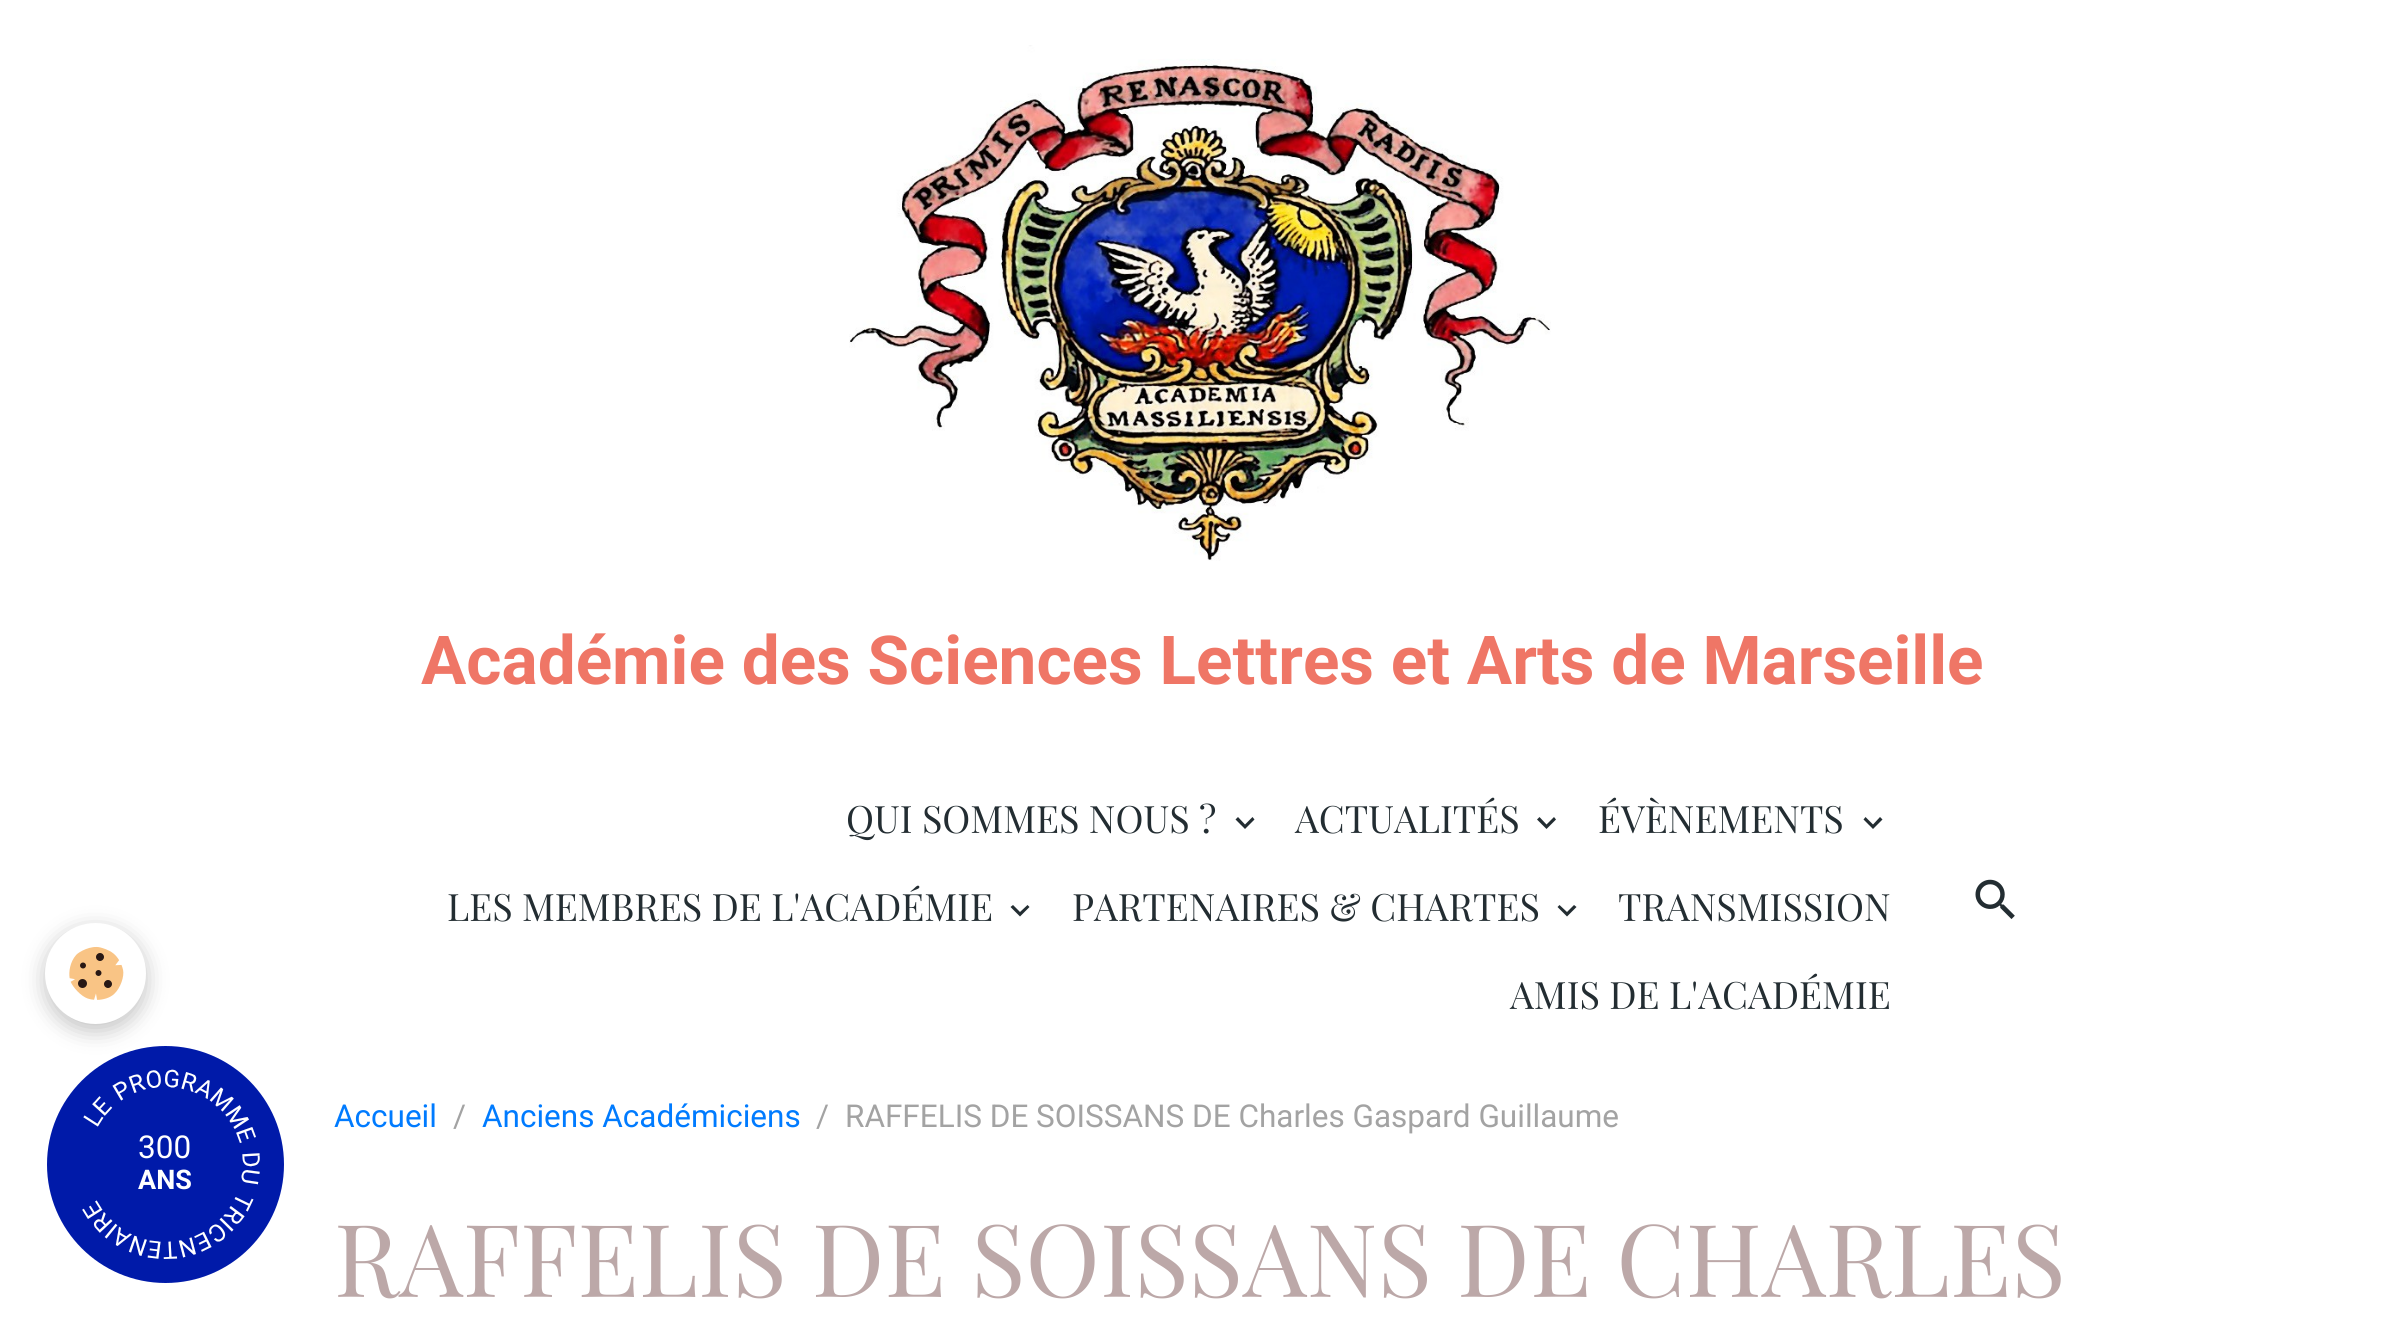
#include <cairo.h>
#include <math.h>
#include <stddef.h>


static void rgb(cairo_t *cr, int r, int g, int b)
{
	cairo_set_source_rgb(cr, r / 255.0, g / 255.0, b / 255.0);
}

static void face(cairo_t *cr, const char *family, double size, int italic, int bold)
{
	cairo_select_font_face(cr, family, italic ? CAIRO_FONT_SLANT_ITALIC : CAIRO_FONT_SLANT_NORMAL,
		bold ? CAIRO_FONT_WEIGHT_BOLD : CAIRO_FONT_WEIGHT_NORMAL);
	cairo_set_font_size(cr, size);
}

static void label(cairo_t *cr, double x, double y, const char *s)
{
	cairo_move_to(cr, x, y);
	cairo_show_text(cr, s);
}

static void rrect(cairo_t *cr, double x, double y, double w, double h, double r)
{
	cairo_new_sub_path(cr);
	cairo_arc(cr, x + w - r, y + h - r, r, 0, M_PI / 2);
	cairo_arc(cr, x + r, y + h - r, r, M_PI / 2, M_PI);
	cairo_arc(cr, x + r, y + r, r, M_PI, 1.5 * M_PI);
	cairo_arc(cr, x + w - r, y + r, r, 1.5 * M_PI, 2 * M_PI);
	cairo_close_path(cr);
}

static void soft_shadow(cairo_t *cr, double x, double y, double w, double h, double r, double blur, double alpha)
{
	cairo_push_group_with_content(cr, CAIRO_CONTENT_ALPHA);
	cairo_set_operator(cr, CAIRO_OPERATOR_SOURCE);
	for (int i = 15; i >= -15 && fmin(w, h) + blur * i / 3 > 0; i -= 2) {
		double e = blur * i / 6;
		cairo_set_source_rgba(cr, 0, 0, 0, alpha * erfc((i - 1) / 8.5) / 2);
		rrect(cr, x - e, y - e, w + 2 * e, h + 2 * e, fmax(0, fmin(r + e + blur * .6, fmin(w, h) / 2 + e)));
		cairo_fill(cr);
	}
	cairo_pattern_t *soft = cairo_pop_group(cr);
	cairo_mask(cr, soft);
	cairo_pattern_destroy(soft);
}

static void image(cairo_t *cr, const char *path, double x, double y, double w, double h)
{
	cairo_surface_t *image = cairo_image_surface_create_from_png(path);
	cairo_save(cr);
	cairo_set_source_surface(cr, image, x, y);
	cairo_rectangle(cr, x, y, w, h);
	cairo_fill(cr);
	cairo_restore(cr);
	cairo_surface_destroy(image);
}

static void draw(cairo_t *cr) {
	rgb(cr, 255, 255, 255);
	cairo_paint(cr);
	image(cr, "image0.png", 849, 45, 702, 516);
	face(cr, "Roboto", 67.5, 0, 1);
	rgb(cr, 239, 118, 102);
	label(cr, 421, 684, "Académie des Sciences Lettres et Arts de Marseille");
	rgb(cr, 0, 26, 169);
	cairo_new_path(cr);
	cairo_arc(cr, 165.5, 1164.5, 118.5, 0, 2 * M_PI);
	cairo_fill(cr);
	rgb(cr, 0, 0, 0);
	soft_shadow(cr, 45, 929, 101, 102, 50.5, 11, 0.24);
	rgb(cr, 255, 255, 255);
	cairo_arc(cr, 95.5, 973.5, 50.5, 0, 2 * M_PI);
	cairo_fill(cr);
	image(cr, "image1.png", 69, 946, 55, 54);
	face(cr, "Playfair Display", 37.75, 0, 0);
	rgb(cr, 35, 45, 50);
	label(cr, 846, 833, "QUI SOMMES NOUS ?");
	cairo_new_path(cr);
	cairo_move_to(cr, 1252.5, 817);
	cairo_line_to(cr, 1254.5, 819.5);
	cairo_line_to(cr, 1245, 829);
	cairo_line_to(cr, 1235.5, 819.5);
	cairo_line_to(cr, 1238, 817);
	cairo_line_to(cr, 1245, 824.5);
	cairo_close_path(cr);
	cairo_fill(cr);
	label(cr, 1295, 833, "ACTUALITÉS");
	cairo_new_path(cr);
	cairo_move_to(cr, 1554, 817);
	cairo_line_to(cr, 1556, 819.5);
	cairo_line_to(cr, 1546.5, 829);
	cairo_line_to(cr, 1537, 819.5);
	cairo_line_to(cr, 1539.5, 817);
	cairo_line_to(cr, 1546.5, 824.5);
	cairo_close_path(cr);
	cairo_fill(cr);
	label(cr, 1598, 833, "ÉVÈNEMENTS");
	cairo_new_path(cr);
	cairo_move_to(cr, 1880, 817);
	cairo_line_to(cr, 1882.5, 819.5);
	cairo_line_to(cr, 1873, 829);
	cairo_line_to(cr, 1863.5, 819.5);
	cairo_line_to(cr, 1865.5, 817);
	cairo_line_to(cr, 1873, 824.5);
	cairo_close_path(cr);
	cairo_fill(cr);
	label(cr, 447, 921, "LES MEMBRES DE L'ACADÉMIE");
	cairo_new_path(cr);
	cairo_move_to(cr, 1027.5, 905);
	cairo_line_to(cr, 1029.5, 907);
	cairo_line_to(cr, 1020, 916.5);
	cairo_line_to(cr, 1010.5, 907);
	cairo_line_to(cr, 1013, 905);
	cairo_line_to(cr, 1020, 912);
	cairo_close_path(cr);
	cairo_fill(cr);
	label(cr, 1072, 921, "PARTENAIRES & CHARTES");
	cairo_new_path(cr);
	cairo_move_to(cr, 1574, 905);
	cairo_line_to(cr, 1576.5, 907);
	cairo_line_to(cr, 1567, 916.5);
	cairo_line_to(cr, 1557.5, 907);
	cairo_line_to(cr, 1559.5, 905);
	cairo_line_to(cr, 1567, 912);
	cairo_close_path(cr);
	cairo_fill(cr);
	label(cr, 1618, 921, "TRANSMISSION");
	label(cr, 1510, 1009, "AMIS DE L'ACADÉMIE");
	image(cr, "image2.png", 1975, 879, 40, 40);
	image(cr, "image3.png", 82, 1069, 178, 190);
	face(cr, "Roboto", 31.5, 0, 0);
	rgb(cr, 255, 255, 255);
	label(cr, 138, 1158, "300");
	face(cr, "Roboto", 27, 0, 1);
	label(cr, 138, 1189, "ANS");
	face(cr, "Roboto", 31.5, 0, 0);
	rgb(cr, 0, 123, 255);
	label(cr, 334, 1127, "Accueil");
	rgb(cr, 163, 163, 163);
	label(cr, 453, 1127, "/");
	rgb(cr, 0, 123, 255);
	label(cr, 482, 1127, "Anciens Académiciens");
	rgb(cr, 163, 163, 163);
	label(cr, 816, 1127, "/");
	label(cr, 845, 1127, "RAFFELIS DE SOISSANS DE Charles Gaspard Guillaume");
	face(cr, "Playfair Display", 100.75, 0, 0);
	rgb(cr, 188, 168, 168);
	label(cr, 334, 1297, "RAFFELIS DE SOISSANS DE CHARLES");
}

int main(void) {
	cairo_surface_t *surface = cairo_image_surface_create(CAIRO_FORMAT_RGB24, 2404, 1329);
	cairo_t *cr = cairo_create(surface);
	cairo_font_options_t *options = cairo_font_options_create();
	cairo_font_options_set_hint_metrics(options, CAIRO_HINT_METRICS_OFF);
	cairo_font_options_set_hint_style(options, CAIRO_HINT_STYLE_NONE);
	cairo_set_font_options(cr, options);
	cairo_set_miter_limit(cr, 4);
	draw(cr);
	cairo_surface_write_to_png(surface, "render.png");
	cairo_font_options_destroy(options);
	cairo_destroy(cr);
	cairo_surface_destroy(surface);
	return 0;
}
